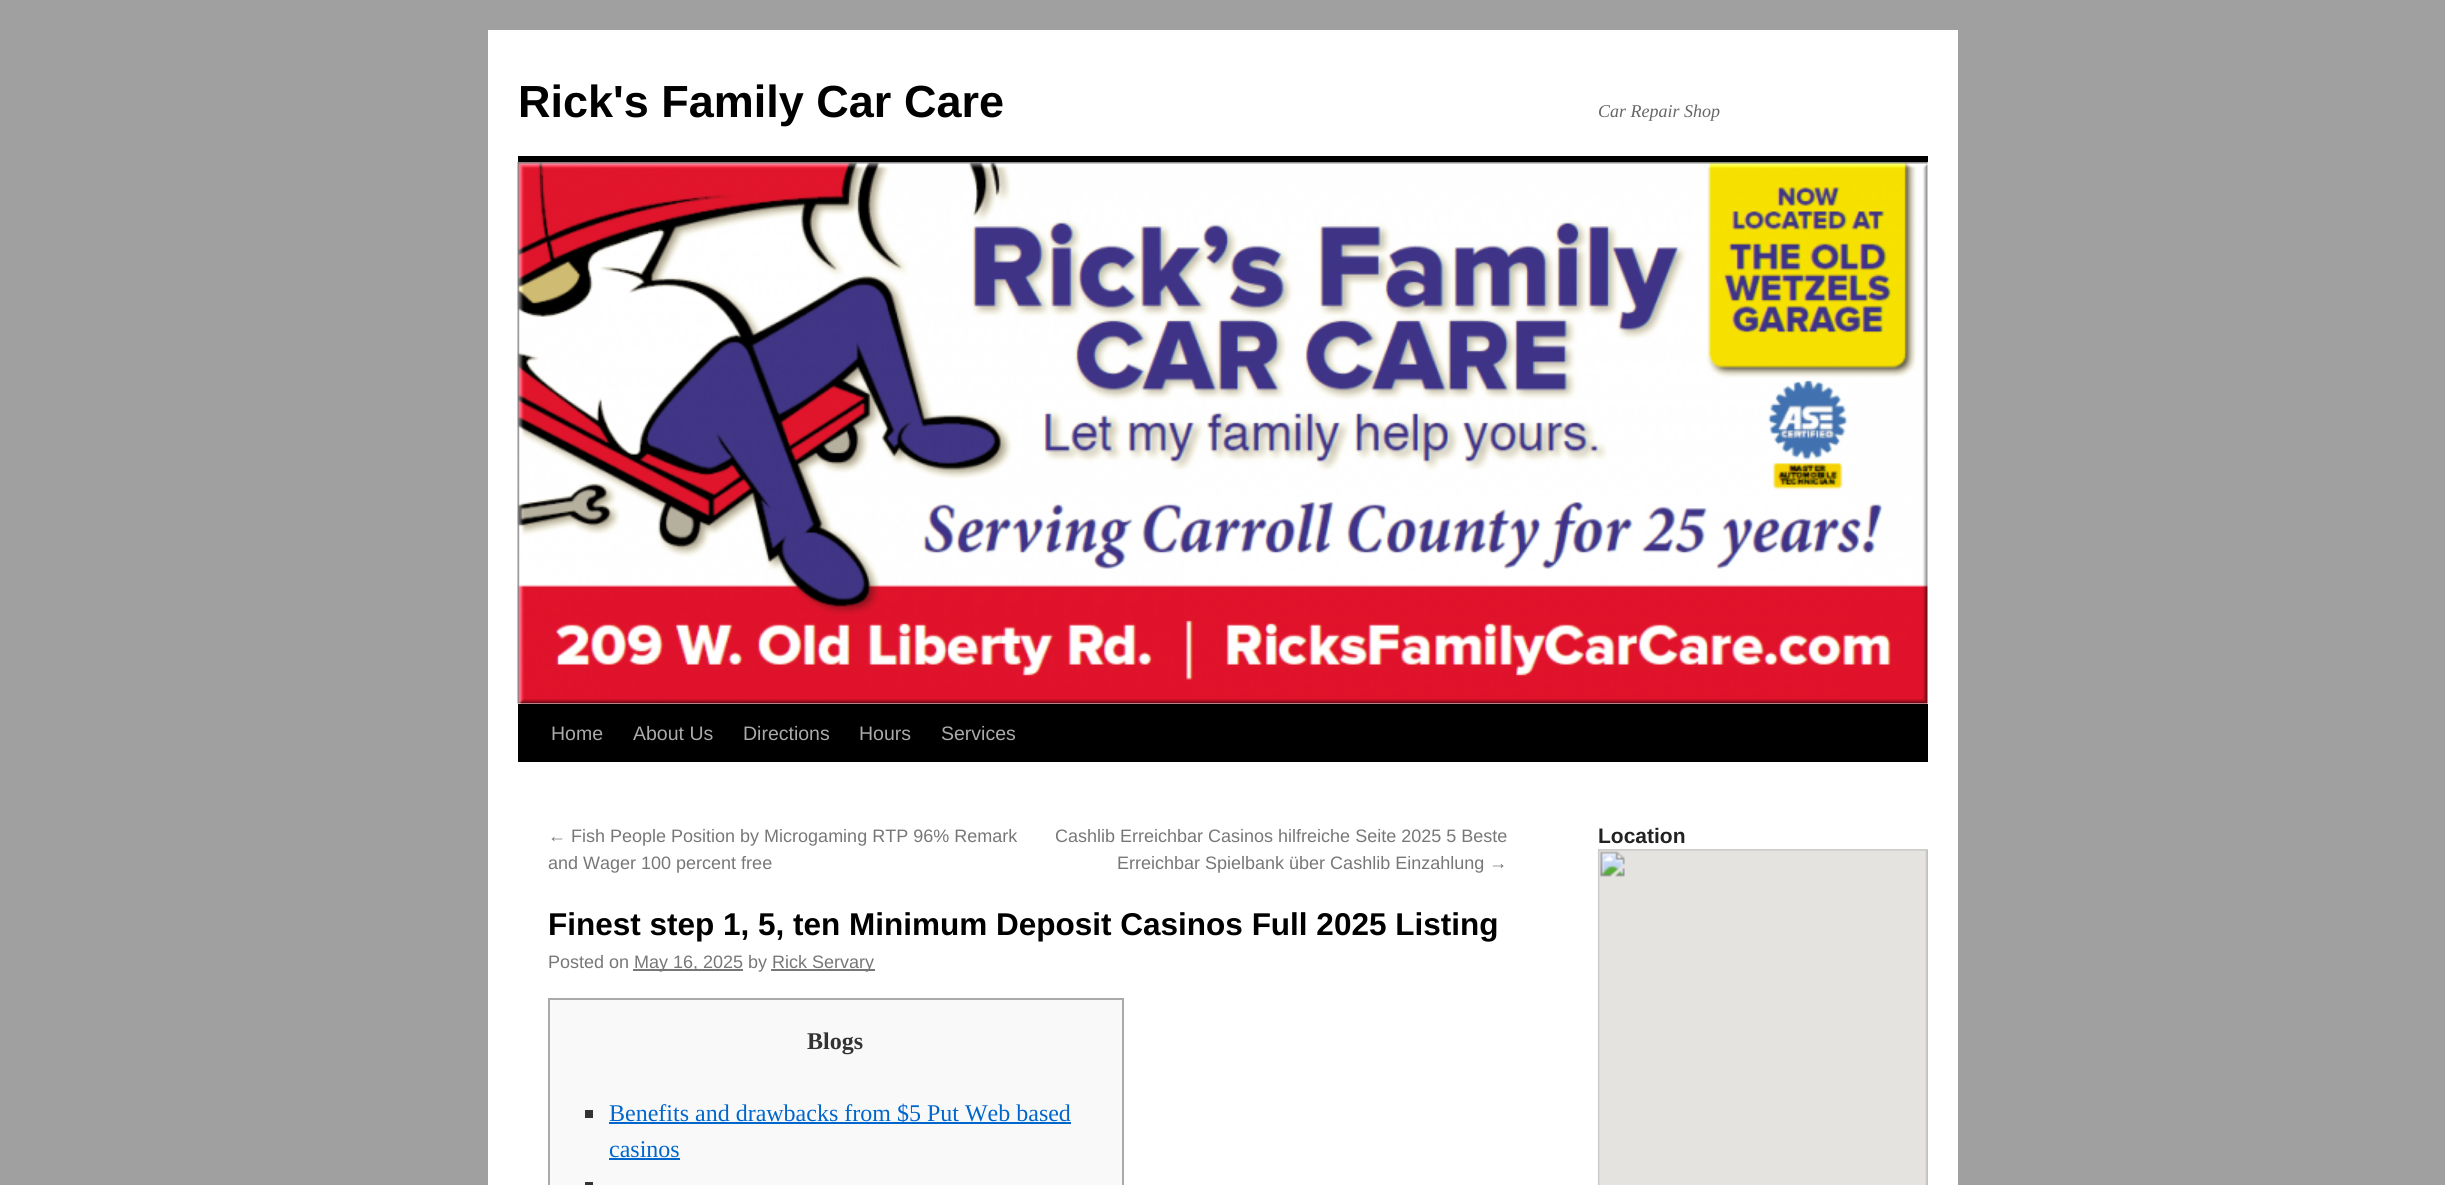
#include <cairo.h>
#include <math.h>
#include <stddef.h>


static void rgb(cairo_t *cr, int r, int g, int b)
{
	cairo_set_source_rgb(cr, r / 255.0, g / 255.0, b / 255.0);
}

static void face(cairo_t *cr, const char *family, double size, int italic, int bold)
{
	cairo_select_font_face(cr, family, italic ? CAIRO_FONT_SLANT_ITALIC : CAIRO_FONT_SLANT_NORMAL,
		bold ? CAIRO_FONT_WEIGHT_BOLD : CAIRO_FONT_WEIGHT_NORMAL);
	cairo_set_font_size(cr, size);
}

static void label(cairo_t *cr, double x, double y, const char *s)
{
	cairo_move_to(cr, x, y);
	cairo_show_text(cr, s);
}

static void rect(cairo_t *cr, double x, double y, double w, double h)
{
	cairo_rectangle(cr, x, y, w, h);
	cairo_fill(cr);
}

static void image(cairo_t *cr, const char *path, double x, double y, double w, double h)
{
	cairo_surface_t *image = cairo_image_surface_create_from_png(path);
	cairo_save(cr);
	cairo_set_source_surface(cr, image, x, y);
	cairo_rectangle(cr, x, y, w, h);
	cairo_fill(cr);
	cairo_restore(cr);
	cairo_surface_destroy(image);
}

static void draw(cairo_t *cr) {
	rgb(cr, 160, 160, 160);
	cairo_paint(cr);
	rgb(cr, 255, 255, 255);
	rect(cr, 488, 30, 1470, 1155);
	face(cr, "Liberation Sans", 45, 0, 1);
	rgb(cr, 0, 0, 0);
	label(cr, 518, 117, "Rick's Family Car Care");
	face(cr, "Liberation Serif", 18, 1, 0);
	rgb(cr, 102, 102, 102);
	label(cr, 1598, 117, "Car Repair Shop");
	rgb(cr, 0, 0, 0);
	rect(cr, 518, 156, 1410, 6);
	rect(cr, 518, 704, 1410, 58);
	image(cr, "image0.png", 517, 162, 1411, 542);
	face(cr, "Liberation Sans", 19.5, 0, 0);
	rgb(cr, 170, 170, 170);
	label(cr, 551, 740, "Home");
	label(cr, 633, 740, "About Us");
	label(cr, 743, 740, "Directions");
	label(cr, 859, 740, "Hours");
	label(cr, 941, 740, "Services");
	face(cr, "Liberation Sans", 18, 0, 0);
	rgb(cr, 119, 119, 119);
	label(cr, 548, 842, "← Fish People Position by Microgaming RTP 96% Remark");
	label(cr, 548, 869, "and Wager 100 percent free");
	label(cr, 1055, 842, "Cashlib Erreichbar Casinos hilfreiche Seite 2025 5 Beste");
	label(cr, 1117, 869, "Erreichbar Spielbank über Cashlib Einzahlung →");
	face(cr, "Liberation Sans", 31.5, 0, 1);
	rgb(cr, 0, 0, 0);
	label(cr, 548, 935, "Finest step 1, 5, ten Minimum Deposit Casinos Full 2025 Listing");
	face(cr, "Liberation Sans", 18, 0, 0);
	rgb(cr, 119, 119, 119);
	label(cr, 548, 968, "Posted on");
	rect(cr, 633, 969, 110, 2);
	label(cr, 634, 968, "May 16, 2025 by");
	rect(cr, 771, 969, 104, 2);
	label(cr, 772, 968, "Rick Servary");
	rgb(cr, 249, 249, 249);
	cairo_rectangle(cr, 549, 999, 574, 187);
	cairo_fill_preserve(cr);
	rgb(cr, 170, 170, 170);
	cairo_stroke(cr);
	face(cr, "Liberation Serif", 24, 0, 1);
	rgb(cr, 51, 51, 51);
	label(cr, 807, 1049, "Blogs");
	rect(cr, 585, 1110, 8, 8);
	rgb(cr, 0, 102, 204);
	rect(cr, 609, 1122, 462, 2);
	face(cr, "Liberation Serif", 24, 0, 0);
	label(cr, 609, 1121, "Benefits and drawbacks from $5 Put Web based");
	label(cr, 609, 1157, "casinos");
	rect(cr, 609, 1158, 71, 2);
	rgb(cr, 51, 51, 51);
	rect(cr, 585, 1182, 8, 3);
	face(cr, "Liberation Sans", 21, 0, 1);
	rgb(cr, 34, 34, 34);
	label(cr, 1598, 843, "Location");
	image(cr, "image1.png", 1597, 849, 331, 336);
}

int main(void) {
	cairo_surface_t *surface = cairo_image_surface_create(CAIRO_FORMAT_RGB24, 2445, 1185);
	cairo_t *cr = cairo_create(surface);
	cairo_font_options_t *options = cairo_font_options_create();
	cairo_font_options_set_hint_metrics(options, CAIRO_HINT_METRICS_OFF);
	cairo_font_options_set_hint_style(options, CAIRO_HINT_STYLE_NONE);
	cairo_set_font_options(cr, options);
	cairo_set_miter_limit(cr, 4);
	draw(cr);
	cairo_surface_write_to_png(surface, "render.png");
	cairo_font_options_destroy(options);
	cairo_destroy(cr);
	cairo_surface_destroy(surface);
	return 0;
}
